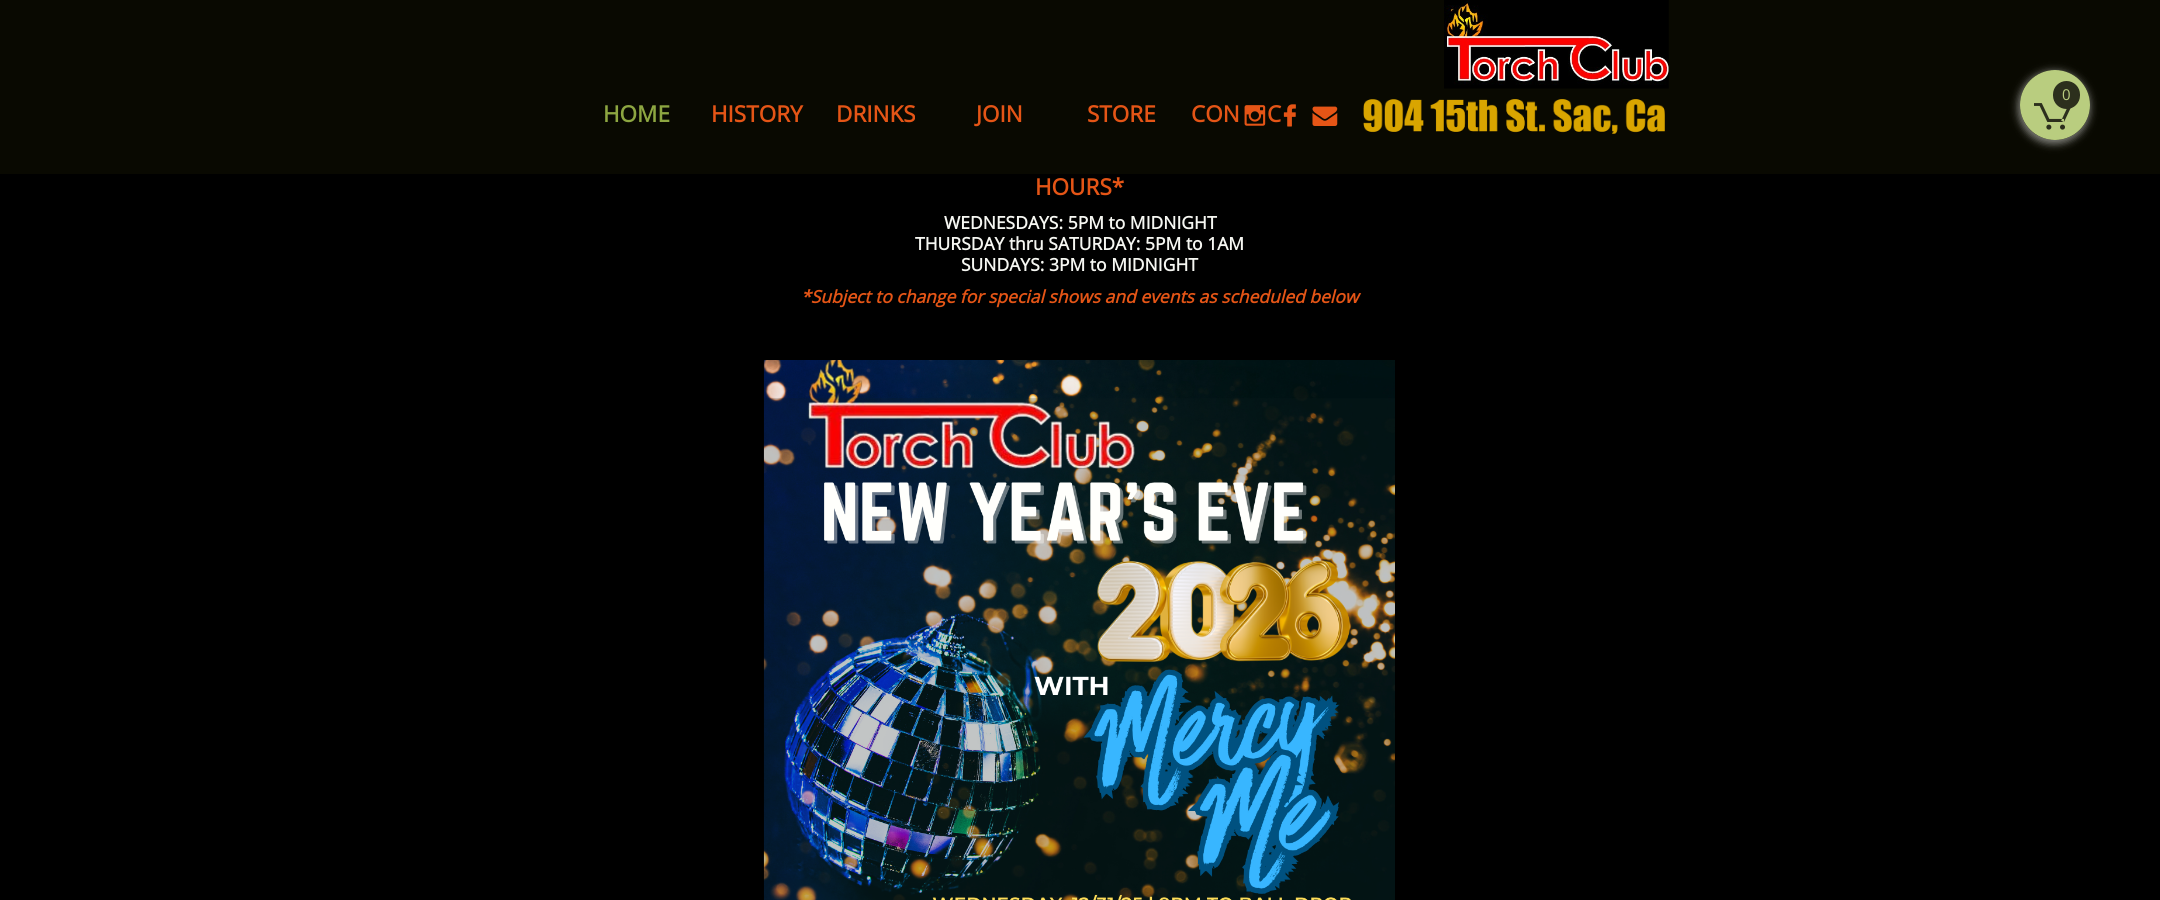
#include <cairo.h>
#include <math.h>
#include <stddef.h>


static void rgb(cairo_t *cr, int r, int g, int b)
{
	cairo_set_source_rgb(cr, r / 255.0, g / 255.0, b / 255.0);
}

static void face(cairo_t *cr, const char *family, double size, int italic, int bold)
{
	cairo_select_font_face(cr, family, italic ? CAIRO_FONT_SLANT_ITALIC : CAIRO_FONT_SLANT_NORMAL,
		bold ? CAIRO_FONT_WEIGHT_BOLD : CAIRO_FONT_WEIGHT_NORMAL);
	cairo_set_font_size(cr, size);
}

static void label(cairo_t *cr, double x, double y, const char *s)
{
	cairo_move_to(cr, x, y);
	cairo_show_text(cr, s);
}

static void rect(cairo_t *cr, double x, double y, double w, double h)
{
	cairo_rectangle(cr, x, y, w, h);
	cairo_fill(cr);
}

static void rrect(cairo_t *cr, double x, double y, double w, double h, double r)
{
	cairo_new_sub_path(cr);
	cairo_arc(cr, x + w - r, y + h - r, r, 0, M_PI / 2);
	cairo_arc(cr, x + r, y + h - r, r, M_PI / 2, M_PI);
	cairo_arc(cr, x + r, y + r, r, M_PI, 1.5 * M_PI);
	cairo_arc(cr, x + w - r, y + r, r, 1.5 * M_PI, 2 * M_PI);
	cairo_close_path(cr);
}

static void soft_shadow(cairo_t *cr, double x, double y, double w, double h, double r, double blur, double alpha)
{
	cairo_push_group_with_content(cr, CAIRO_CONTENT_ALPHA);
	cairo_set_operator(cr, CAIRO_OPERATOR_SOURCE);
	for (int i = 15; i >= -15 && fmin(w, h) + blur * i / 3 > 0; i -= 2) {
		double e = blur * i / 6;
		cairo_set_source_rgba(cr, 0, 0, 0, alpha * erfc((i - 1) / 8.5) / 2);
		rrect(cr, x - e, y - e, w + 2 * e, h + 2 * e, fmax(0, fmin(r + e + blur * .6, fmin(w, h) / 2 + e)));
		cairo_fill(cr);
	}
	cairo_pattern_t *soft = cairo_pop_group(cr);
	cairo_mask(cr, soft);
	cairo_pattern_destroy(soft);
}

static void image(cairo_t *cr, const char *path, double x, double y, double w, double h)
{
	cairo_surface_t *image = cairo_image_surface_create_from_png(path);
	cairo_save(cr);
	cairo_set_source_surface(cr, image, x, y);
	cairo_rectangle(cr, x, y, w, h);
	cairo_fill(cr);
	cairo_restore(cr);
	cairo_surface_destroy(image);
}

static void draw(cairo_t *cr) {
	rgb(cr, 0, 0, 0);
	cairo_paint(cr);
	rgb(cr, 9, 9, 1);
	rect(cr, 0, 0, 2160, 174);
	image(cr, "image0.png", 1444, 0, 225, 89);
	rgb(cr, 185, 205, 127);
	cairo_arc(cr, 2055, 105, 35, 0, 2 * M_PI);
	cairo_fill(cr);
	cairo_save(cr);
	cairo_set_fill_rule(cr, CAIRO_FILL_RULE_EVEN_ODD);
	cairo_new_path(cr);
	cairo_move_to(cr, 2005, 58);
	cairo_line_to(cr, 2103, 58);
	cairo_line_to(cr, 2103, 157);
	cairo_line_to(cr, 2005, 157);
	cairo_close_path(cr);
	cairo_move_to(cr, 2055, 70);
	cairo_curve_to(cr, 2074.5, 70, 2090, 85.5, 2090, 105);
	cairo_curve_to(cr, 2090, 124.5, 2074.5, 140, 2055, 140);
	cairo_curve_to(cr, 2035.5, 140, 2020, 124.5, 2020, 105);
	cairo_curve_to(cr, 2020, 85.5, 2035.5, 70, 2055, 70);
	cairo_close_path(cr);
	cairo_clip(cr);
	rgb(cr, 246, 247, 242);
	soft_shadow(cr, 2018, 71, 72, 73, 36, 4, 0.5);
	cairo_restore(cr);
	image(cr, "image1.png", 2034, 103, 37, 27);
	rgb(cr, 44, 47, 29);
	rrect(cr, 2053, 81, 27, 28, 13.5);
	cairo_fill(cr);
	face(cr, "Open Sans", 15, 0, 0);
	rgb(cr, 185, 205, 127);
	label(cr, 2062, 100, "0");
	face(cr, "Open Sans", 22.5, 0, 1);
	rgb(cr, 141, 166, 65);
	label(cr, 603, 122, "HOME");
	rgb(cr, 229, 85, 22);
	label(cr, 711, 122, "HISTORY");
	label(cr, 836, 122, "DRINKS");
	label(cr, 976, 122, "JOIN");
	label(cr, 1087, 122, "STORE");
	label(cr, 1191, 122, "CON");
	label(cr, 1267, 122, "C");
	image(cr, "image2.png", 1283, 104, 13, 23);
	image(cr, "image3.png", 1363, 99, 302, 35);
	image(cr, "image4.png", 1244, 105, 22, 21);
	image(cr, "image5.png", 1312, 106, 26, 20);
	label(cr, 1035, 195, "HOURS*");
	face(cr, "Open Sans", 17.5, 0, 1);
	rgb(cr, 246, 247, 242);
	label(cr, 944, 229, "WEDNESDAYS: 5PM to MIDNIGHT");
	label(cr, 915, 250, "THURSDAY thru SATURDAY: 5PM to 1AM");
	label(cr, 961, 271, "SUNDAYS: 3PM to MIDNIGHT");
	face(cr, "Open Sans", 17.5, 1, 1);
	rgb(cr, 229, 85, 22);
	label(cr, 801, 303, "*Subject to change for special shows and events as scheduled below");
	image(cr, "image6.png", 763, 360, 632, 540);
}

int main(void) {
	cairo_surface_t *surface = cairo_image_surface_create(CAIRO_FORMAT_RGB24, 2160, 900);
	cairo_t *cr = cairo_create(surface);
	cairo_font_options_t *options = cairo_font_options_create();
	cairo_font_options_set_hint_metrics(options, CAIRO_HINT_METRICS_OFF);
	cairo_font_options_set_hint_style(options, CAIRO_HINT_STYLE_NONE);
	cairo_set_font_options(cr, options);
	cairo_set_miter_limit(cr, 4);
	draw(cr);
	cairo_surface_write_to_png(surface, "render.png");
	cairo_font_options_destroy(options);
	cairo_destroy(cr);
	cairo_surface_destroy(surface);
	return 0;
}
